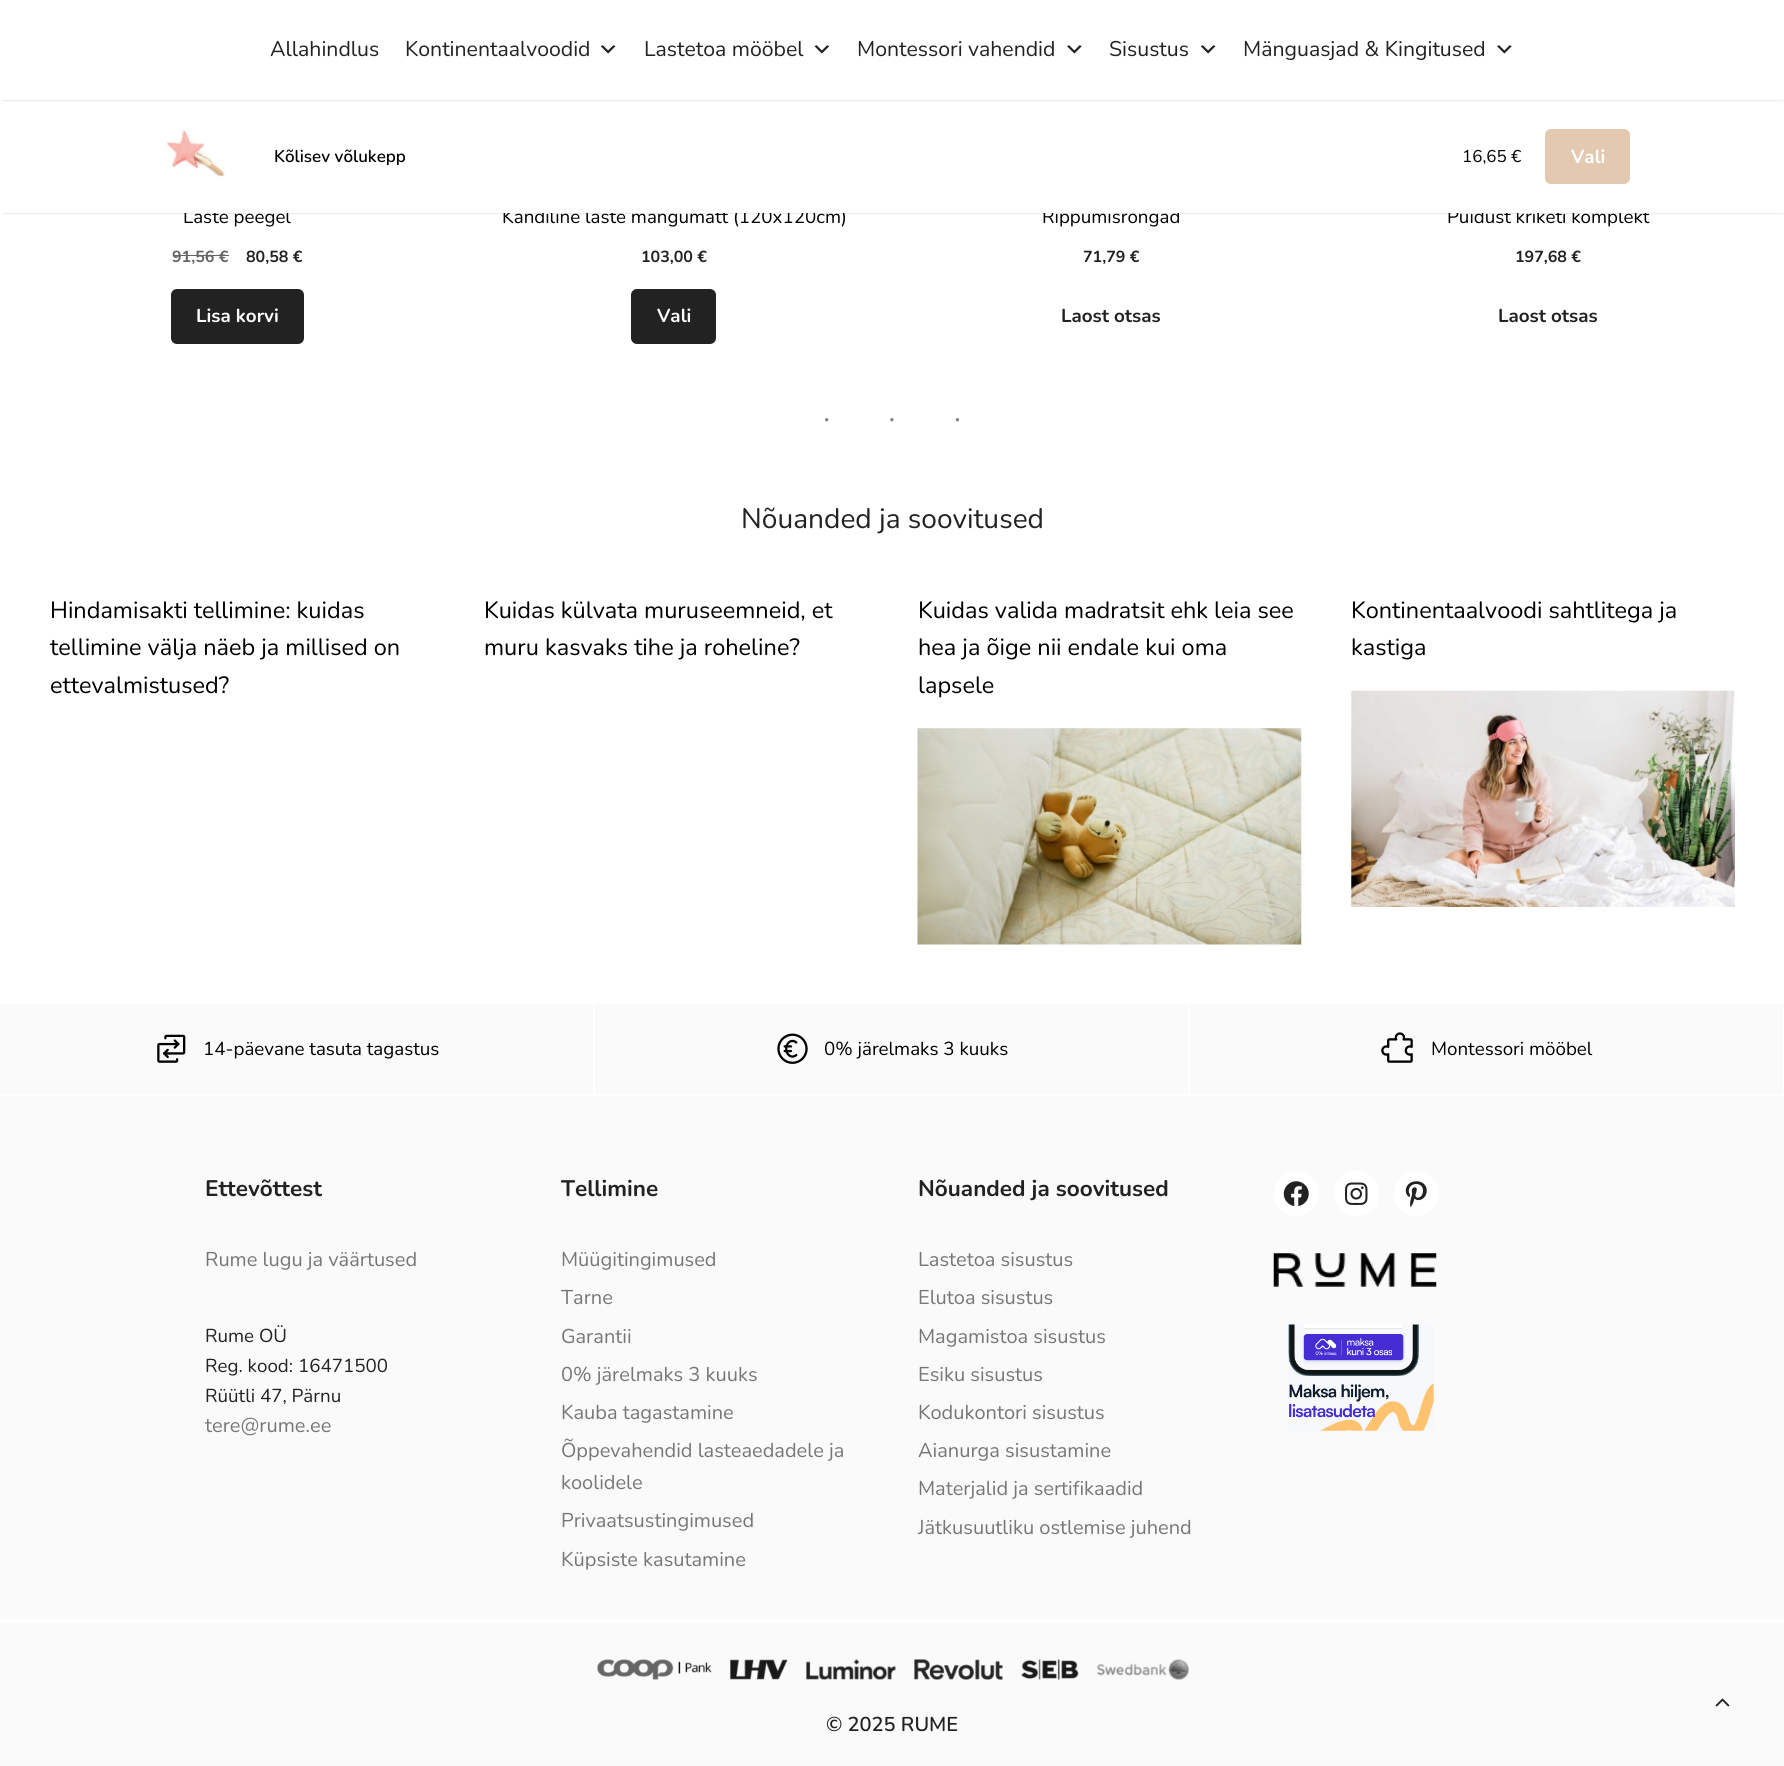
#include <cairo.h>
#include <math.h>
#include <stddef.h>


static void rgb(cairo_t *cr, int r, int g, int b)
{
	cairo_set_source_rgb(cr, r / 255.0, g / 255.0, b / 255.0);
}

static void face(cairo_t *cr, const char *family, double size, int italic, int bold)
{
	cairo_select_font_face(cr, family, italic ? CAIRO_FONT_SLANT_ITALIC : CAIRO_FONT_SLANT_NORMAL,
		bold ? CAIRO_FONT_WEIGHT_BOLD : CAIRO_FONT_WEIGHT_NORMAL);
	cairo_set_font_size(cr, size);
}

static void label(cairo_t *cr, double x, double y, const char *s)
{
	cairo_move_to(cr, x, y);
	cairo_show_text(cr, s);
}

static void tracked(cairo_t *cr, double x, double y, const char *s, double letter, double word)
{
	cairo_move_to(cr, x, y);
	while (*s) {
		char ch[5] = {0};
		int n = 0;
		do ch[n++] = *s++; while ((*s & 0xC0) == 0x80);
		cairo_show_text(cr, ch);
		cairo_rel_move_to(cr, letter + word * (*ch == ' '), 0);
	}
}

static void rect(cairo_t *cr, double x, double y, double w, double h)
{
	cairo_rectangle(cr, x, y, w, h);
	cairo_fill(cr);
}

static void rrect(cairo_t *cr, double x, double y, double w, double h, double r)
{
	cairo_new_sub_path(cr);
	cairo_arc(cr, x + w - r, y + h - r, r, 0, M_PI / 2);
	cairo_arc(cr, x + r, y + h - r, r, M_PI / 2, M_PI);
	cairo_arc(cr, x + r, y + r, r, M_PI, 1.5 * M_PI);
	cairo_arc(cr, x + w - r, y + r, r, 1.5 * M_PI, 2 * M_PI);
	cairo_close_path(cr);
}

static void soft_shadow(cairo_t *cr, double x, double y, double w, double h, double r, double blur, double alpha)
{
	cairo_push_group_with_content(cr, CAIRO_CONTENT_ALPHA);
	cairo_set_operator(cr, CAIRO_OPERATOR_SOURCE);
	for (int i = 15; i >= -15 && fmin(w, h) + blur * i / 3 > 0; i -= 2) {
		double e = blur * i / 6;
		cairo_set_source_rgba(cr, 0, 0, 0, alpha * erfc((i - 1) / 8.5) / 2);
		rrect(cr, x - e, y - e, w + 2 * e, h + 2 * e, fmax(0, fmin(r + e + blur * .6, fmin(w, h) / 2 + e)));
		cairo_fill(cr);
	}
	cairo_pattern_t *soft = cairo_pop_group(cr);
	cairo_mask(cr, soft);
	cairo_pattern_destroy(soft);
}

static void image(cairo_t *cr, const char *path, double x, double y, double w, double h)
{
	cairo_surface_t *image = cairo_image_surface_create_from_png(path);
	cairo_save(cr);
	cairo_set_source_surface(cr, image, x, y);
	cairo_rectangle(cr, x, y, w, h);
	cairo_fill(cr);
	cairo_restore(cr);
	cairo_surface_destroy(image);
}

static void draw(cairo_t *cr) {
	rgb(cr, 255, 255, 255);
	cairo_paint(cr);
	rgb(cr, 0, 0, 0);
	soft_shadow(cr, 3, 105, 1780, 108, 0, 1, 0.2);
	face(cr, "Nunito", 18.75, 0, 0);
	rgb(cr, 0, 0, 0);
	label(cr, 183, 223, "Laste peegel");
	label(cr, 502, 223, "Kandiline laste mängumatt (120x120cm)");
	label(cr, 1042, 223, "Rippumisrõngad");
	label(cr, 1447, 223, "Puidust kriketi komplekt");
	rgb(cr, 255, 255, 255);
	rect(cr, 1, 103, 1783, 110);
	rgb(cr, 0, 0, 0);
	soft_shadow(cr, 3, 5, 1780, 95, 0, 1, 0.2);
	rgb(cr, 255, 255, 255);
	rect(cr, 1, 3, 1783, 97);
	face(cr, "Nunito", 21.25, 0, 0);
	rgb(cr, 34, 34, 34);
	label(cr, 270, 56, "Allahindlus");
	label(cr, 405, 56, "Kontinentaalvoodid");
	image(cr, "image0.png", 600, 45, 16, 9);
	label(cr, 644, 56, "Lastetoa mööbel");
	image(cr, "image1.png", 814, 45, 16, 9);
	label(cr, 857, 56, "Montessori vahendid");
	image(cr, "image2.png", 1067, 45, 15, 9);
	label(cr, 1109, 56, "Sisustus");
	image(cr, "image0.png", 1200, 45, 16, 9);
	label(cr, 1243, 56, "Mänguasjad & Kingitused");
	image(cr, "image2.png", 1497, 45, 15, 9);
	image(cr, "image3.png", 166, 130, 59, 47);
	face(cr, "Nunito SemiBold", 17, 0, 0);
	rgb(cr, 0, 0, 0);
	label(cr, 274, 162, "Kõlisev võlukepp");
	face(cr, "Nunito", 17, 0, 0);
	label(cr, 1462, 162, "16,65 €");
	rgb(cr, 228, 201, 177);
	rrect(cr, 1545, 129, 85, 55, 6);
	cairo_fill(cr);
	face(cr, "Nunito", 18.75, 0, 1);
	rgb(cr, 255, 255, 255);
	label(cr, 1571, 163, "Vali");
	face(cr, "Nunito", 16, 0, 1);
	rgb(cr, 100, 100, 100);
	label(cr, 172, 262, "91,56 €");
	rect(cr, 173, 255, 56, 1);
	rgb(cr, 34, 34, 34);
	label(cr, 246, 262, "80,58 €");
	rrect(cr, 171, 289, 133, 55, 6);
	cairo_fill(cr);
	face(cr, "Nunito", 18.75, 0, 1);
	rgb(cr, 255, 255, 255);
	label(cr, 196, 322, "Lisa korvi");
	face(cr, "Nunito", 16, 0, 1);
	rgb(cr, 34, 34, 34);
	label(cr, 641, 262, "103,00 €");
	rrect(cr, 631, 289, 85, 55, 6);
	cairo_fill(cr);
	face(cr, "Nunito", 18.75, 0, 1);
	rgb(cr, 255, 255, 255);
	label(cr, 657, 322, "Vali");
	face(cr, "Nunito", 16, 0, 1);
	rgb(cr, 34, 34, 34);
	label(cr, 1083, 262, "71,79 €");
	face(cr, "Nunito", 18.75, 0, 1);
	label(cr, 1061, 322, "Laost otsas");
	face(cr, "Nunito", 16, 0, 1);
	label(cr, 1515, 262, "197,68 €");
	face(cr, "Nunito", 18.75, 0, 1);
	label(cr, 1498, 322, "Laost otsas");
	face(cr, "Liberation Serif", 28.1, 0, 0);
	rgb(cr, 128, 128, 128);
	tracked(cr, 822, 429, "···", 56, 0);
	face(cr, "Nunito", 28.1, 0, 0);
	rgb(cr, 34, 34, 34);
	label(cr, 741, 528, "Nõuanded ja soovitused");
	face(cr, "Nunito", 23.5, 0, 0);
	rgb(cr, 0, 0, 0);
	label(cr, 50, 618, "Hindamisakti tellimine: kuidas");
	label(cr, 50, 655, "tellimine välja näeb ja millised on");
	label(cr, 50, 693, "ettevalmistused?");
	label(cr, 484, 618, "Kuidas külvata muruseemneid, et");
	label(cr, 484, 655, "muru kasvaks tihe ja roheline?");
	label(cr, 918, 618, "Kuidas valida madratsit ehk leia see");
	label(cr, 918, 655, "hea ja õige nii endale kui oma");
	label(cr, 918, 693, "lapsele");
	image(cr, "image4.png", 917, 728, 385, 217);
	label(cr, 1351, 618, "Kontinentaalvoodi sahtlitega ja");
	label(cr, 1351, 655, "kastiga");
	image(cr, "image5.png", 1351, 690, 384, 217);
	rgb(cr, 250, 250, 250);
	rect(cr, 0, 1004, 593, 90);
	image(cr, "image6.png", 157, 1034, 29, 29);
	face(cr, "Nunito", 18.75, 0, 0);
	rgb(cr, 0, 0, 0);
	label(cr, 203, 1055, "14-päevane tasuta tagastus");
	rgb(cr, 250, 250, 250);
	rect(cr, 595, 1004, 593, 90);
	image(cr, "image7.png", 777, 1033, 31, 31);
	rgb(cr, 0, 0, 0);
	label(cr, 824, 1055, "0% järelmaks 3 kuuks");
	rgb(cr, 250, 250, 250);
	rect(cr, 1190, 1004, 593, 90);
	image(cr, "image8.png", 1381, 1032, 32, 31);
	rgb(cr, 0, 0, 0);
	label(cr, 1431, 1055, "Montessori mööbel");
	rgb(cr, 250, 250, 250);
	rect(cr, 0, 1096, 1784, 524);
	face(cr, "Nunito", 22.5, 0, 1);
	rgb(cr, 34, 34, 34);
	label(cr, 205, 1196, "Ettevõttest");
	face(cr, "Nunito", 20, 0, 0);
	rgb(cr, 119, 119, 119);
	label(cr, 205, 1266, "Rume lugu ja väärtused");
	face(cr, "Nunito", 18.75, 0, 0);
	rgb(cr, 34, 34, 34);
	label(cr, 205, 1342, "Rume OÜ");
	label(cr, 205, 1372, "Reg. kood: 16471500");
	label(cr, 205, 1402, "Rüütli 47, Pärnu");
	face(cr, "Nunito", 20, 0, 0);
	rgb(cr, 119, 119, 119);
	label(cr, 205, 1432, "tere@rume.ee");
	face(cr, "Nunito", 22.5, 0, 1);
	rgb(cr, 34, 34, 34);
	label(cr, 561, 1196, "Tellimine");
	face(cr, "Nunito", 20, 0, 0);
	rgb(cr, 119, 119, 119);
	label(cr, 561, 1266, "Müügitingimused");
	label(cr, 561, 1304, "Tarne");
	label(cr, 561, 1343, "Garantii");
	label(cr, 561, 1381, "0% järelmaks 3 kuuks");
	label(cr, 561, 1419, "Kauba tagastamine");
	label(cr, 561, 1457, "Õppevahendid lasteaedadele ja");
	label(cr, 561, 1489, "koolidele");
	label(cr, 561, 1527, "Privaatsustingimused");
	label(cr, 561, 1566, "Küpsiste kasutamine");
	face(cr, "Nunito", 22.5, 0, 1);
	rgb(cr, 34, 34, 34);
	label(cr, 918, 1196, "Nõuanded ja soovitused");
	face(cr, "Nunito", 20, 0, 0);
	rgb(cr, 119, 119, 119);
	label(cr, 918, 1266, "Lastetoa sisustus");
	label(cr, 918, 1304, "Elutoa sisustus");
	label(cr, 918, 1343, "Magamistoa sisustus");
	label(cr, 918, 1381, "Esiku sisustus");
	label(cr, 918, 1419, "Kodukontori sisustus");
	label(cr, 918, 1457, "Aianurga sisustamine");
	label(cr, 918, 1495, "Materjalid ja sertifikaadid");
	label(cr, 918, 1534, "Jätkusuutliku ostlemise juhend");
	rgb(cr, 255, 255, 255);
	cairo_new_path(cr);
	cairo_arc(cr, 1296.5, 1193.5, 22.5, 0, 2 * M_PI);
	cairo_fill(cr);
	image(cr, "image9.png", 1283, 1181, 26, 26);
	cairo_arc(cr, 1356.5, 1193.5, 22.5, 0, 2 * M_PI);
	cairo_fill(cr);
	image(cr, "image10.png", 1345, 1182, 23, 23);
	cairo_arc(cr, 1416.5, 1193.5, 22.5, 0, 2 * M_PI);
	cairo_fill(cr);
	image(cr, "image11.png", 1405, 1181, 22, 27);
	image(cr, "image12.png", 1273, 1253, 164, 34);
	image(cr, "image13.png", 1288, 1324, 146, 107);
	rgb(cr, 250, 250, 250);
	rect(cr, 0, 1623, 1784, 143);
	image(cr, "image14.png", 597, 1659, 592, 21);
	face(cr, "Nunito SemiBold", 20, 0, 0);
	rgb(cr, 34, 34, 34);
	label(cr, 826, 1731, "© 2025 RUME");
	image(cr, "image15.png", 1715, 1698, 15, 9);
}

int main(void) {
	cairo_surface_t *surface = cairo_image_surface_create(CAIRO_FORMAT_RGB24, 1784, 1766);
	cairo_t *cr = cairo_create(surface);
	cairo_font_options_t *options = cairo_font_options_create();
	cairo_font_options_set_hint_metrics(options, CAIRO_HINT_METRICS_OFF);
	cairo_font_options_set_hint_style(options, CAIRO_HINT_STYLE_NONE);
	cairo_set_font_options(cr, options);
	cairo_set_miter_limit(cr, 4);
	draw(cr);
	cairo_surface_write_to_png(surface, "render.png");
	cairo_font_options_destroy(options);
	cairo_destroy(cr);
	cairo_surface_destroy(surface);
	return 0;
}
